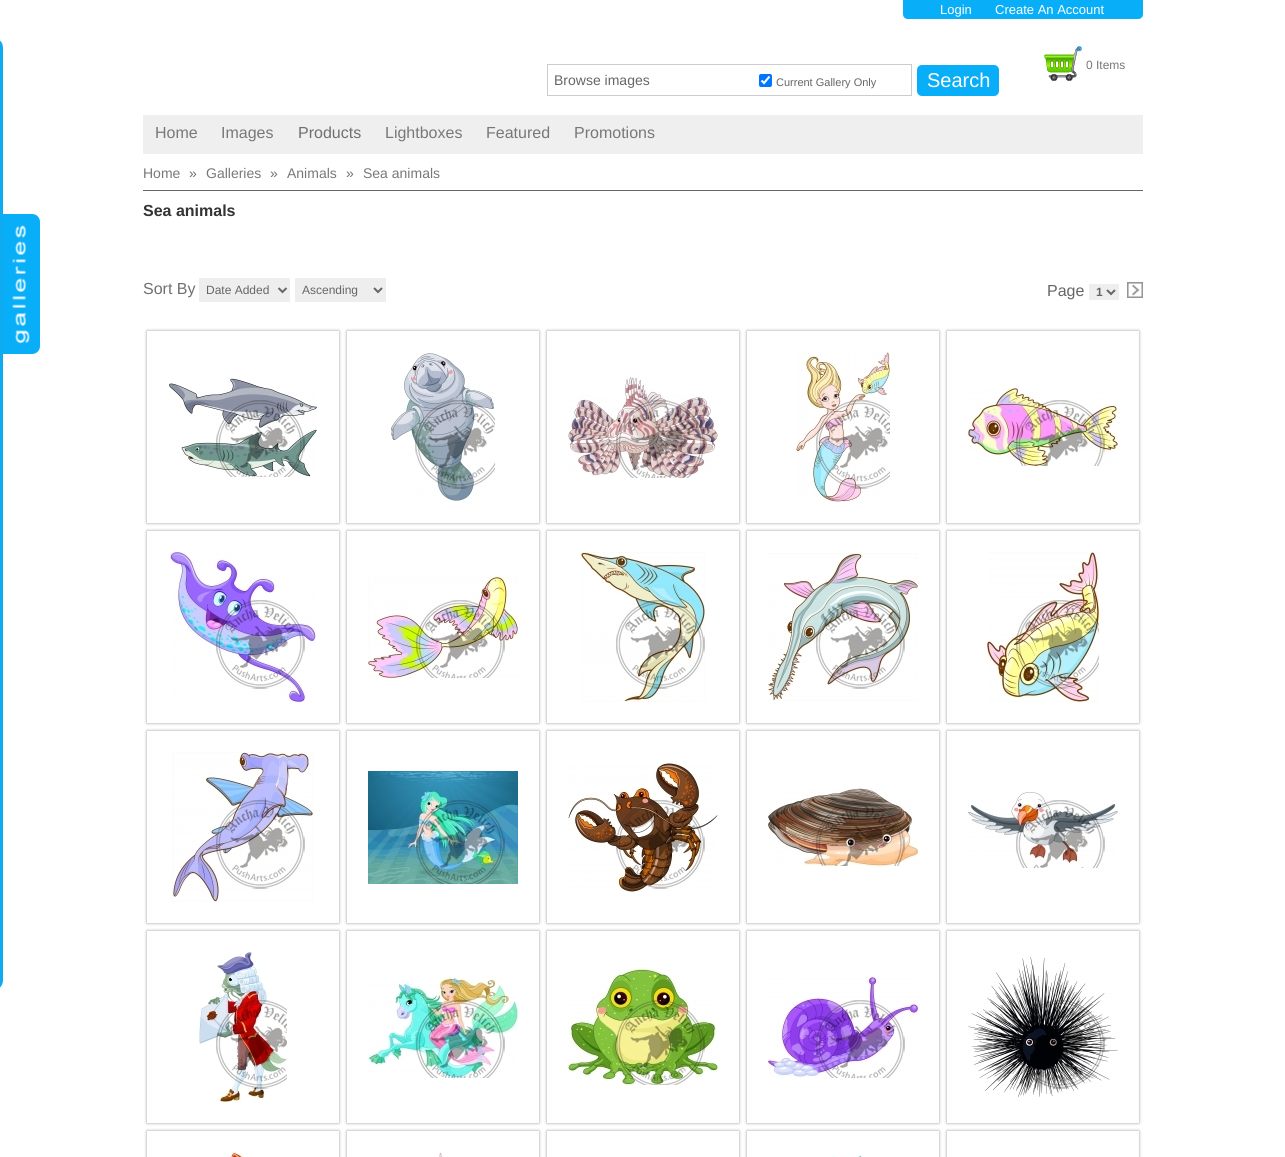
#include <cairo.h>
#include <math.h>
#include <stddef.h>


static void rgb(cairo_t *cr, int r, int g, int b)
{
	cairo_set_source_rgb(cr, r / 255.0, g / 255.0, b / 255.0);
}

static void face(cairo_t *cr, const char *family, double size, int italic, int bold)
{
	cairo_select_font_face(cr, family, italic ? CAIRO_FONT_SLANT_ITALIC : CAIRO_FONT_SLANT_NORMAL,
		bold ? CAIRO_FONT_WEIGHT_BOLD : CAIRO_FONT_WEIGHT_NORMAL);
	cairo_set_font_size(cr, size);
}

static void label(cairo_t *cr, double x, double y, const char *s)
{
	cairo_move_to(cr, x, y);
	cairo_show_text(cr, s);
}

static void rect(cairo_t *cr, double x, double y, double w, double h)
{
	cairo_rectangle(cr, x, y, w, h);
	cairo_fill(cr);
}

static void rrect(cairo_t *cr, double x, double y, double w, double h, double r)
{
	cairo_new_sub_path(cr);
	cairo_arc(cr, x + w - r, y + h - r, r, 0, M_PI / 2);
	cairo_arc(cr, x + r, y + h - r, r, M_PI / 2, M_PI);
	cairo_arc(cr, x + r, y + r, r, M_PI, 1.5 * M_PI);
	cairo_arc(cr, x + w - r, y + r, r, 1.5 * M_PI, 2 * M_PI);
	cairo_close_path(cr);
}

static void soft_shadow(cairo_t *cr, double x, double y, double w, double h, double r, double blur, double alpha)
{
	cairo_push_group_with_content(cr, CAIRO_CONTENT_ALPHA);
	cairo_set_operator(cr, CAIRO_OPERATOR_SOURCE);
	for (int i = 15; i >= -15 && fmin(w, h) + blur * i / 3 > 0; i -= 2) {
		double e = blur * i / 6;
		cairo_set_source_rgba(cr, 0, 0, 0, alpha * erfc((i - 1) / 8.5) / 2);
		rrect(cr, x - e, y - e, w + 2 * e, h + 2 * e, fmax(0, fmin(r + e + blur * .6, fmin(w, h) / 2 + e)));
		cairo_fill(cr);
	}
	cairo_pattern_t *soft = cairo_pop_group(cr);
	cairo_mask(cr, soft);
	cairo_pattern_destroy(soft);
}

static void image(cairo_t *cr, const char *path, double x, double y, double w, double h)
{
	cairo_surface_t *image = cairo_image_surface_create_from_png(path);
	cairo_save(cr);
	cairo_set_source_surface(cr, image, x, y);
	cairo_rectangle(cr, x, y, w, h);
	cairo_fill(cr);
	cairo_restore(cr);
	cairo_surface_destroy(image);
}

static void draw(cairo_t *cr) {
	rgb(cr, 255, 255, 255);
	cairo_paint(cr);
	rgb(cr, 8, 174, 248);
	cairo_new_path(cr);
	cairo_move_to(cr, 0, 214);
	cairo_line_to(cr, 32, 214);
	cairo_curve_to(cr, 36.5, 214, 40, 217.5, 40, 222);
	cairo_line_to(cr, 40, 346);
	cairo_curve_to(cr, 40, 350.5, 36.5, 354, 32, 354);
	cairo_line_to(cr, 0, 354);
	cairo_close_path(cr);
	cairo_fill(cr);
	image(cr, "image0.png", 12, 225, 18, 119);
	rgb(cr, 16, 170, 240);
	cairo_set_fill_rule(cr, CAIRO_FILL_RULE_EVEN_ODD);
	cairo_new_path(cr);
	cairo_move_to(cr, -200, 38);
	cairo_line_to(cr, -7, 38);
	cairo_curve_to(cr, -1, 38, 3, 42, 3, 48);
	cairo_line_to(cr, 3, 980);
	cairo_curve_to(cr, 3, 986, -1, 990, -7, 990);
	cairo_line_to(cr, -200, 990);
	cairo_close_path(cr);
	cairo_move_to(cr, -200, 41);
	cairo_line_to(cr, -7, 41);
	cairo_curve_to(cr, -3, 41, 0, 44, 0, 48);
	cairo_line_to(cr, 0, 980);
	cairo_curve_to(cr, 0, 984, -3, 987, -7, 987);
	cairo_line_to(cr, -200, 987);
	cairo_close_path(cr);
	cairo_fill(cr);
	rgb(cr, 239, 239, 239);
	rect(cr, 143, 115, 1000, 39);
	face(cr, "Liberation Sans", 16, 0, 0);
	rgb(cr, 120, 120, 120);
	label(cr, 155, 138, "Home");
	label(cr, 221, 138, "Images");
	rgb(cr, 112, 112, 112);
	label(cr, 298, 138, "Products");
	rgb(cr, 120, 120, 120);
	label(cr, 385, 138, "Lightboxes");
	label(cr, 486, 138, "Featured");
	label(cr, 574, 138, "Promotions");
	rgb(cr, 8, 174, 248);
	cairo_new_path(cr);
	cairo_move_to(cr, 903, 0);
	cairo_line_to(cr, 1143, 0);
	cairo_line_to(cr, 1143, 14);
	cairo_curve_to(cr, 1143, 17, 1141, 19, 1138, 19);
	cairo_line_to(cr, 908, 19);
	cairo_curve_to(cr, 905, 19, 903, 17, 903, 14);
	cairo_close_path(cr);
	cairo_fill(cr);
	face(cr, "Liberation Sans", 13, 0, 0);
	rgb(cr, 255, 255, 255);
	label(cr, 940, 14, "Login");
	label(cr, 995, 14, "Create An Account");
	image(cr, "image1.png", 1044, 46, 38, 35);
	face(cr, "Liberation Sans", 12, 0, 0);
	rgb(cr, 120, 120, 120);
	label(cr, 1086, 69, "0 Items");
	cairo_rectangle(cr, 547.5, 64.5, 210, 31);
	rgb(cr, 204, 204, 204);
	cairo_set_line_width(cr, 1);
	cairo_stroke(cr);
	face(cr, "Liberation Sans", 14, 0, 0);
	rgb(cr, 102, 102, 102);
	label(cr, 554, 85, "Browse images");
	rgb(cr, 255, 255, 255);
	rect(cr, 757, 65, 1, 30);
	rgb(cr, 204, 204, 204);
	rect(cr, 753, 64, 159, 1);
	rect(cr, 911, 64, 1, 32);
	rect(cr, 753, 95, 159, 1);
	rgb(cr, 0, 117, 255);
	rrect(cr, 759, 74, 13, 13, 2);
	cairo_fill(cr);
	cairo_new_path(cr);
	cairo_move_to(cr, 761.5, 80.5);
	cairo_line_to(cr, 764, 83);
	cairo_line_to(cr, 769.5, 76.5);
	rgb(cr, 255, 255, 255);
	cairo_set_line_width(cr, 2.1);
	cairo_stroke(cr);
	face(cr, "Liberation Sans", 11, 0, 0);
	rgb(cr, 102, 102, 102);
	label(cr, 776, 86, "Current Gallery Only");
	rgb(cr, 8, 174, 248);
	rrect(cr, 917, 65, 82, 31, 5);
	cairo_fill(cr);
	face(cr, "Liberation Sans", 20, 0, 0);
	rgb(cr, 255, 255, 255);
	label(cr, 927, 87, "Search");
	face(cr, "Liberation Sans", 14, 0, 0);
	rgb(cr, 120, 120, 120);
	label(cr, 143, 178, "Home");
	rgb(cr, 112, 112, 112);
	label(cr, 189, 178, "»");
	rgb(cr, 120, 120, 120);
	label(cr, 206, 178, "Galleries");
	rgb(cr, 112, 112, 112);
	label(cr, 270, 178, "»");
	rgb(cr, 120, 120, 120);
	label(cr, 287, 178, "Animals");
	rgb(cr, 112, 112, 112);
	label(cr, 346, 178, "»");
	rgb(cr, 120, 120, 120);
	label(cr, 363, 178, "Sea animals");
	rgb(cr, 102, 102, 102);
	rect(cr, 143, 190, 1000, 1);
	face(cr, "Liberation Sans", 16, 0, 1);
	rgb(cr, 51, 51, 51);
	label(cr, 143, 216, "Sea animals");
	face(cr, "Liberation Sans", 16, 0, 0);
	rgb(cr, 112, 112, 112);
	label(cr, 143, 294, "Sort By");
	rgb(cr, 238, 238, 238);
	rect(cr, 199, 278, 91, 24);
	cairo_new_path(cr);
	cairo_move_to(cr, 278.5, 288);
	cairo_line_to(cr, 282.5, 292);
	cairo_line_to(cr, 286.5, 288);
	rgb(cr, 102, 102, 102);
	cairo_set_line_width(cr, 2);
	cairo_stroke(cr);
	face(cr, "Liberation Sans", 12, 0, 0);
	label(cr, 206, 294, "Date Added");
	rgb(cr, 238, 238, 238);
	rect(cr, 295, 278, 91, 24);
	cairo_new_path(cr);
	cairo_move_to(cr, 374, 288);
	cairo_line_to(cr, 378, 292);
	cairo_line_to(cr, 382, 288);
	rgb(cr, 102, 102, 102);
	cairo_stroke(cr);
	label(cr, 302, 294, "Ascending");
	face(cr, "Liberation Sans", 16, 0, 0);
	label(cr, 1047, 296, "Page");
	rgb(cr, 238, 238, 238);
	rect(cr, 1089, 284, 30, 16);
	cairo_new_path(cr);
	cairo_move_to(cr, 1107, 290);
	cairo_line_to(cr, 1111, 294);
	cairo_line_to(cr, 1115, 290);
	rgb(cr, 102, 102, 102);
	cairo_stroke(cr);
	face(cr, "Liberation Sans", 12, 0, 1);
	label(cr, 1096, 296, "1");
	image(cr, "image2.png", 1127, 282, 16, 16);
	cairo_save(cr);
	cairo_new_path(cr);
	cairo_move_to(cr, 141, 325);
	cairo_line_to(cr, 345, 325);
	cairo_line_to(cr, 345, 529);
	cairo_line_to(cr, 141, 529);
	cairo_close_path(cr);
	cairo_move_to(cr, 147, 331);
	cairo_line_to(cr, 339, 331);
	cairo_line_to(cr, 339, 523);
	cairo_line_to(cr, 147, 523);
	cairo_close_path(cr);
	cairo_clip(cr);
	rgb(cr, 153, 153, 153);
	soft_shadow(cr, 147, 331, 192, 192, 0, 1.5, 1);
	cairo_restore(cr);
	image(cr, "image3.png", 169, 378, 148, 99);
	cairo_save(cr);
	cairo_new_path(cr);
	cairo_move_to(cr, 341, 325);
	cairo_line_to(cr, 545, 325);
	cairo_line_to(cr, 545, 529);
	cairo_line_to(cr, 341, 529);
	cairo_close_path(cr);
	cairo_move_to(cr, 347, 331);
	cairo_line_to(cr, 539, 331);
	cairo_line_to(cr, 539, 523);
	cairo_line_to(cr, 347, 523);
	cairo_close_path(cr);
	cairo_clip(cr);
	rgb(cr, 153, 153, 153);
	soft_shadow(cr, 347, 331, 192, 192, 0, 1.5, 1);
	cairo_restore(cr);
	image(cr, "image4.png", 390, 353, 105, 149);
	cairo_save(cr);
	cairo_new_path(cr);
	cairo_move_to(cr, 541, 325);
	cairo_line_to(cr, 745, 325);
	cairo_line_to(cr, 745, 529);
	cairo_line_to(cr, 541, 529);
	cairo_close_path(cr);
	cairo_move_to(cr, 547, 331);
	cairo_line_to(cr, 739, 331);
	cairo_line_to(cr, 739, 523);
	cairo_line_to(cr, 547, 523);
	cairo_close_path(cr);
	cairo_clip(cr);
	rgb(cr, 153, 153, 153);
	soft_shadow(cr, 547, 331, 192, 192, 0, 1.5, 1);
	cairo_restore(cr);
	image(cr, "image5.png", 568, 377, 150, 101);
	cairo_save(cr);
	cairo_new_path(cr);
	cairo_move_to(cr, 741, 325);
	cairo_line_to(cr, 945, 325);
	cairo_line_to(cr, 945, 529);
	cairo_line_to(cr, 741, 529);
	cairo_close_path(cr);
	cairo_move_to(cr, 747, 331);
	cairo_line_to(cr, 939, 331);
	cairo_line_to(cr, 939, 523);
	cairo_line_to(cr, 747, 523);
	cairo_close_path(cr);
	cairo_clip(cr);
	rgb(cr, 153, 153, 153);
	soft_shadow(cr, 747, 331, 192, 192, 0, 1.5, 1);
	cairo_restore(cr);
	image(cr, "image6.png", 796, 352, 94, 150);
	cairo_save(cr);
	cairo_new_path(cr);
	cairo_move_to(cr, 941, 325);
	cairo_line_to(cr, 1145, 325);
	cairo_line_to(cr, 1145, 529);
	cairo_line_to(cr, 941, 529);
	cairo_close_path(cr);
	cairo_move_to(cr, 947, 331);
	cairo_line_to(cr, 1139, 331);
	cairo_line_to(cr, 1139, 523);
	cairo_line_to(cr, 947, 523);
	cairo_close_path(cr);
	cairo_clip(cr);
	rgb(cr, 153, 153, 153);
	soft_shadow(cr, 947, 331, 192, 192, 0, 1.5, 1);
	cairo_restore(cr);
	image(cr, "image7.png", 968, 388, 150, 78);
	cairo_save(cr);
	cairo_new_path(cr);
	cairo_move_to(cr, 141, 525);
	cairo_line_to(cr, 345, 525);
	cairo_line_to(cr, 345, 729);
	cairo_line_to(cr, 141, 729);
	cairo_close_path(cr);
	cairo_move_to(cr, 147, 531);
	cairo_line_to(cr, 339, 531);
	cairo_line_to(cr, 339, 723);
	cairo_line_to(cr, 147, 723);
	cairo_close_path(cr);
	cairo_clip(cr);
	rgb(cr, 153, 153, 153);
	soft_shadow(cr, 147, 531, 192, 192, 0, 1.5, 1);
	cairo_restore(cr);
	image(cr, "image8.png", 170, 552, 146, 150);
	cairo_save(cr);
	cairo_new_path(cr);
	cairo_move_to(cr, 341, 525);
	cairo_line_to(cr, 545, 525);
	cairo_line_to(cr, 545, 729);
	cairo_line_to(cr, 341, 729);
	cairo_close_path(cr);
	cairo_move_to(cr, 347, 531);
	cairo_line_to(cr, 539, 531);
	cairo_line_to(cr, 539, 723);
	cairo_line_to(cr, 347, 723);
	cairo_close_path(cr);
	cairo_clip(cr);
	rgb(cr, 153, 153, 153);
	soft_shadow(cr, 347, 531, 192, 192, 0, 1.5, 1);
	cairo_restore(cr);
	image(cr, "image9.png", 368, 577, 150, 101);
	cairo_save(cr);
	cairo_new_path(cr);
	cairo_move_to(cr, 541, 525);
	cairo_line_to(cr, 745, 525);
	cairo_line_to(cr, 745, 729);
	cairo_line_to(cr, 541, 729);
	cairo_close_path(cr);
	cairo_move_to(cr, 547, 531);
	cairo_line_to(cr, 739, 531);
	cairo_line_to(cr, 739, 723);
	cairo_line_to(cr, 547, 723);
	cairo_close_path(cr);
	cairo_clip(cr);
	rgb(cr, 153, 153, 153);
	soft_shadow(cr, 547, 531, 192, 192, 0, 1.5, 1);
	cairo_restore(cr);
	image(cr, "image10.png", 581, 552, 124, 150);
	cairo_save(cr);
	cairo_new_path(cr);
	cairo_move_to(cr, 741, 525);
	cairo_line_to(cr, 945, 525);
	cairo_line_to(cr, 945, 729);
	cairo_line_to(cr, 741, 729);
	cairo_close_path(cr);
	cairo_move_to(cr, 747, 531);
	cairo_line_to(cr, 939, 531);
	cairo_line_to(cr, 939, 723);
	cairo_line_to(cr, 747, 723);
	cairo_close_path(cr);
	cairo_clip(cr);
	rgb(cr, 153, 153, 153);
	soft_shadow(cr, 747, 531, 192, 192, 0, 1.5, 1);
	cairo_restore(cr);
	image(cr, "image11.png", 768, 553, 150, 148);
	cairo_save(cr);
	cairo_new_path(cr);
	cairo_move_to(cr, 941, 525);
	cairo_line_to(cr, 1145, 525);
	cairo_line_to(cr, 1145, 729);
	cairo_line_to(cr, 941, 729);
	cairo_close_path(cr);
	cairo_move_to(cr, 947, 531);
	cairo_line_to(cr, 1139, 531);
	cairo_line_to(cr, 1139, 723);
	cairo_line_to(cr, 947, 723);
	cairo_close_path(cr);
	cairo_clip(cr);
	rgb(cr, 153, 153, 153);
	soft_shadow(cr, 947, 531, 192, 192, 0, 1.5, 1);
	cairo_restore(cr);
	image(cr, "image12.png", 987, 552, 112, 150);
	cairo_save(cr);
	cairo_new_path(cr);
	cairo_move_to(cr, 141, 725);
	cairo_line_to(cr, 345, 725);
	cairo_line_to(cr, 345, 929);
	cairo_line_to(cr, 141, 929);
	cairo_close_path(cr);
	cairo_move_to(cr, 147, 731);
	cairo_line_to(cr, 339, 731);
	cairo_line_to(cr, 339, 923);
	cairo_line_to(cr, 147, 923);
	cairo_close_path(cr);
	cairo_clip(cr);
	rgb(cr, 153, 153, 153);
	soft_shadow(cr, 147, 731, 192, 192, 0, 1.5, 1);
	cairo_restore(cr);
	image(cr, "image13.png", 172, 752, 142, 150);
	cairo_save(cr);
	cairo_new_path(cr);
	cairo_move_to(cr, 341, 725);
	cairo_line_to(cr, 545, 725);
	cairo_line_to(cr, 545, 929);
	cairo_line_to(cr, 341, 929);
	cairo_close_path(cr);
	cairo_move_to(cr, 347, 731);
	cairo_line_to(cr, 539, 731);
	cairo_line_to(cr, 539, 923);
	cairo_line_to(cr, 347, 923);
	cairo_close_path(cr);
	cairo_clip(cr);
	rgb(cr, 153, 153, 153);
	soft_shadow(cr, 347, 731, 192, 192, 0, 1.5, 1);
	cairo_restore(cr);
	image(cr, "image14.png", 368, 771, 150, 113);
	cairo_save(cr);
	cairo_new_path(cr);
	cairo_move_to(cr, 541, 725);
	cairo_line_to(cr, 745, 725);
	cairo_line_to(cr, 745, 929);
	cairo_line_to(cr, 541, 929);
	cairo_close_path(cr);
	cairo_move_to(cr, 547, 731);
	cairo_line_to(cr, 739, 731);
	cairo_line_to(cr, 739, 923);
	cairo_line_to(cr, 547, 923);
	cairo_close_path(cr);
	cairo_clip(cr);
	rgb(cr, 153, 153, 153);
	soft_shadow(cr, 547, 731, 192, 192, 0, 1.5, 1);
	cairo_restore(cr);
	image(cr, "image15.png", 568, 763, 150, 129);
	cairo_save(cr);
	cairo_new_path(cr);
	cairo_move_to(cr, 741, 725);
	cairo_line_to(cr, 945, 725);
	cairo_line_to(cr, 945, 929);
	cairo_line_to(cr, 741, 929);
	cairo_close_path(cr);
	cairo_move_to(cr, 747, 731);
	cairo_line_to(cr, 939, 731);
	cairo_line_to(cr, 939, 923);
	cairo_line_to(cr, 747, 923);
	cairo_close_path(cr);
	cairo_clip(cr);
	rgb(cr, 153, 153, 153);
	soft_shadow(cr, 747, 731, 192, 192, 0, 1.5, 1);
	cairo_restore(cr);
	image(cr, "image16.png", 768, 788, 150, 78);
	cairo_save(cr);
	cairo_new_path(cr);
	cairo_move_to(cr, 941, 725);
	cairo_line_to(cr, 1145, 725);
	cairo_line_to(cr, 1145, 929);
	cairo_line_to(cr, 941, 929);
	cairo_close_path(cr);
	cairo_move_to(cr, 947, 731);
	cairo_line_to(cr, 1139, 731);
	cairo_line_to(cr, 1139, 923);
	cairo_line_to(cr, 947, 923);
	cairo_close_path(cr);
	cairo_clip(cr);
	rgb(cr, 153, 153, 153);
	soft_shadow(cr, 947, 731, 192, 192, 0, 1.5, 1);
	cairo_restore(cr);
	image(cr, "image17.png", 968, 792, 150, 76);
	cairo_save(cr);
	cairo_new_path(cr);
	cairo_move_to(cr, 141, 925);
	cairo_line_to(cr, 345, 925);
	cairo_line_to(cr, 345, 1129);
	cairo_line_to(cr, 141, 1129);
	cairo_close_path(cr);
	cairo_move_to(cr, 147, 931);
	cairo_line_to(cr, 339, 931);
	cairo_line_to(cr, 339, 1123);
	cairo_line_to(cr, 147, 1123);
	cairo_close_path(cr);
	cairo_clip(cr);
	rgb(cr, 153, 153, 153);
	soft_shadow(cr, 147, 931, 192, 192, 0, 1.5, 1);
	cairo_restore(cr);
	image(cr, "image18.png", 199, 952, 88, 150);
	cairo_save(cr);
	cairo_new_path(cr);
	cairo_move_to(cr, 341, 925);
	cairo_line_to(cr, 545, 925);
	cairo_line_to(cr, 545, 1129);
	cairo_line_to(cr, 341, 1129);
	cairo_close_path(cr);
	cairo_move_to(cr, 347, 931);
	cairo_line_to(cr, 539, 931);
	cairo_line_to(cr, 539, 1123);
	cairo_line_to(cr, 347, 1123);
	cairo_close_path(cr);
	cairo_clip(cr);
	rgb(cr, 153, 153, 153);
	soft_shadow(cr, 347, 931, 192, 192, 0, 1.5, 1);
	cairo_restore(cr);
	image(cr, "image19.png", 368, 977, 150, 101);
	cairo_save(cr);
	cairo_new_path(cr);
	cairo_move_to(cr, 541, 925);
	cairo_line_to(cr, 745, 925);
	cairo_line_to(cr, 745, 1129);
	cairo_line_to(cr, 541, 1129);
	cairo_close_path(cr);
	cairo_move_to(cr, 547, 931);
	cairo_line_to(cr, 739, 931);
	cairo_line_to(cr, 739, 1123);
	cairo_line_to(cr, 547, 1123);
	cairo_close_path(cr);
	cairo_clip(cr);
	rgb(cr, 153, 153, 153);
	soft_shadow(cr, 547, 931, 192, 192, 0, 1.5, 1);
	cairo_restore(cr);
	image(cr, "image20.png", 568, 969, 150, 116);
	cairo_save(cr);
	cairo_new_path(cr);
	cairo_move_to(cr, 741, 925);
	cairo_line_to(cr, 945, 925);
	cairo_line_to(cr, 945, 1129);
	cairo_line_to(cr, 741, 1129);
	cairo_close_path(cr);
	cairo_move_to(cr, 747, 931);
	cairo_line_to(cr, 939, 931);
	cairo_line_to(cr, 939, 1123);
	cairo_line_to(cr, 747, 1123);
	cairo_close_path(cr);
	cairo_clip(cr);
	rgb(cr, 153, 153, 153);
	soft_shadow(cr, 747, 931, 192, 192, 0, 1.5, 1);
	cairo_restore(cr);
	image(cr, "image21.png", 768, 976, 150, 102);
	cairo_save(cr);
	cairo_new_path(cr);
	cairo_move_to(cr, 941, 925);
	cairo_line_to(cr, 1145, 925);
	cairo_line_to(cr, 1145, 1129);
	cairo_line_to(cr, 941, 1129);
	cairo_close_path(cr);
	cairo_move_to(cr, 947, 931);
	cairo_line_to(cr, 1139, 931);
	cairo_line_to(cr, 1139, 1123);
	cairo_line_to(cr, 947, 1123);
	cairo_close_path(cr);
	cairo_clip(cr);
	rgb(cr, 153, 153, 153);
	soft_shadow(cr, 947, 931, 192, 192, 0, 1.5, 1);
	cairo_restore(cr);
	image(cr, "image22.png", 968, 957, 150, 140);
	cairo_save(cr);
	cairo_new_path(cr);
	cairo_move_to(cr, 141, 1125);
	cairo_line_to(cr, 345, 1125);
	cairo_line_to(cr, 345, 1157);
	cairo_line_to(cr, 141, 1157);
	cairo_close_path(cr);
	cairo_move_to(cr, 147, 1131);
	cairo_line_to(cr, 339, 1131);
	cairo_line_to(cr, 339, 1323);
	cairo_line_to(cr, 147, 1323);
	cairo_close_path(cr);
	cairo_clip(cr);
	rgb(cr, 153, 153, 153);
	soft_shadow(cr, 147, 1131, 192, 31, 0, 1.5, 1);
	cairo_restore(cr);
	image(cr, "image23.png", 229, 1152, 16, 5);
	cairo_save(cr);
	cairo_new_path(cr);
	cairo_move_to(cr, 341, 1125);
	cairo_line_to(cr, 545, 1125);
	cairo_line_to(cr, 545, 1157);
	cairo_line_to(cr, 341, 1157);
	cairo_close_path(cr);
	cairo_move_to(cr, 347, 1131);
	cairo_line_to(cr, 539, 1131);
	cairo_line_to(cr, 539, 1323);
	cairo_line_to(cr, 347, 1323);
	cairo_close_path(cr);
	cairo_clip(cr);
	rgb(cr, 153, 153, 153);
	soft_shadow(cr, 347, 1131, 192, 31, 0, 1.5, 1);
	cairo_restore(cr);
	image(cr, "image24.png", 439, 1152, 3, 5);
	cairo_save(cr);
	cairo_new_path(cr);
	cairo_move_to(cr, 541, 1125);
	cairo_line_to(cr, 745, 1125);
	cairo_line_to(cr, 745, 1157);
	cairo_line_to(cr, 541, 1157);
	cairo_close_path(cr);
	cairo_move_to(cr, 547, 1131);
	cairo_line_to(cr, 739, 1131);
	cairo_line_to(cr, 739, 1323);
	cairo_line_to(cr, 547, 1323);
	cairo_close_path(cr);
	cairo_clip(cr);
	rgb(cr, 153, 153, 153);
	soft_shadow(cr, 547, 1131, 192, 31, 0, 1.5, 1);
	cairo_restore(cr);
	cairo_save(cr);
	cairo_new_path(cr);
	cairo_move_to(cr, 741, 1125);
	cairo_line_to(cr, 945, 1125);
	cairo_line_to(cr, 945, 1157);
	cairo_line_to(cr, 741, 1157);
	cairo_close_path(cr);
	cairo_move_to(cr, 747, 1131);
	cairo_line_to(cr, 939, 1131);
	cairo_line_to(cr, 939, 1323);
	cairo_line_to(cr, 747, 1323);
	cairo_close_path(cr);
	cairo_clip(cr);
	rgb(cr, 153, 153, 153);
	soft_shadow(cr, 747, 1131, 192, 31, 0, 1.5, 1);
	cairo_restore(cr);
	image(cr, "image25.png", 832, 1155, 31, 2);
	cairo_save(cr);
	cairo_new_path(cr);
	cairo_move_to(cr, 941, 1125);
	cairo_line_to(cr, 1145, 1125);
	cairo_line_to(cr, 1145, 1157);
	cairo_line_to(cr, 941, 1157);
	cairo_close_path(cr);
	cairo_move_to(cr, 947, 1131);
	cairo_line_to(cr, 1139, 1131);
	cairo_line_to(cr, 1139, 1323);
	cairo_line_to(cr, 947, 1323);
	cairo_close_path(cr);
	cairo_clip(cr);
	rgb(cr, 153, 153, 153);
	soft_shadow(cr, 947, 1131, 192, 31, 0, 1.5, 1);
	cairo_restore(cr);
}

int main(void) {
	cairo_surface_t *surface = cairo_image_surface_create(CAIRO_FORMAT_RGB24, 1285, 1157);
	cairo_t *cr = cairo_create(surface);
	cairo_font_options_t *options = cairo_font_options_create();
	cairo_font_options_set_hint_metrics(options, CAIRO_HINT_METRICS_OFF);
	cairo_font_options_set_hint_style(options, CAIRO_HINT_STYLE_NONE);
	cairo_set_font_options(cr, options);
	cairo_set_miter_limit(cr, 4);
	draw(cr);
	cairo_surface_write_to_png(surface, "render.png");
	cairo_font_options_destroy(options);
	cairo_destroy(cr);
	cairo_surface_destroy(surface);
	return 0;
}
